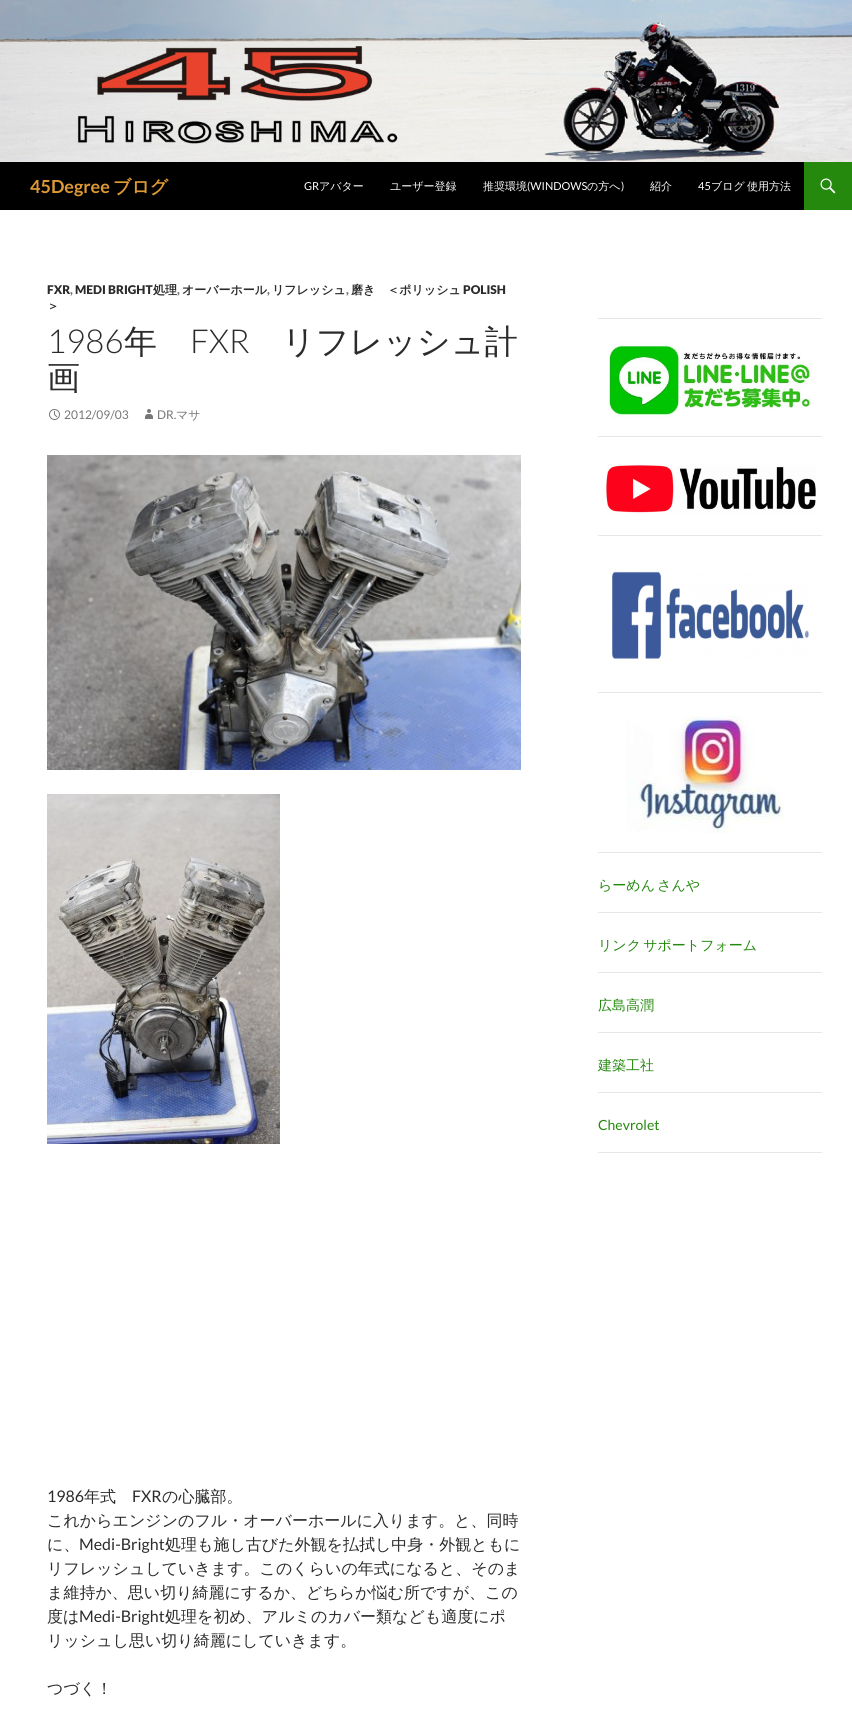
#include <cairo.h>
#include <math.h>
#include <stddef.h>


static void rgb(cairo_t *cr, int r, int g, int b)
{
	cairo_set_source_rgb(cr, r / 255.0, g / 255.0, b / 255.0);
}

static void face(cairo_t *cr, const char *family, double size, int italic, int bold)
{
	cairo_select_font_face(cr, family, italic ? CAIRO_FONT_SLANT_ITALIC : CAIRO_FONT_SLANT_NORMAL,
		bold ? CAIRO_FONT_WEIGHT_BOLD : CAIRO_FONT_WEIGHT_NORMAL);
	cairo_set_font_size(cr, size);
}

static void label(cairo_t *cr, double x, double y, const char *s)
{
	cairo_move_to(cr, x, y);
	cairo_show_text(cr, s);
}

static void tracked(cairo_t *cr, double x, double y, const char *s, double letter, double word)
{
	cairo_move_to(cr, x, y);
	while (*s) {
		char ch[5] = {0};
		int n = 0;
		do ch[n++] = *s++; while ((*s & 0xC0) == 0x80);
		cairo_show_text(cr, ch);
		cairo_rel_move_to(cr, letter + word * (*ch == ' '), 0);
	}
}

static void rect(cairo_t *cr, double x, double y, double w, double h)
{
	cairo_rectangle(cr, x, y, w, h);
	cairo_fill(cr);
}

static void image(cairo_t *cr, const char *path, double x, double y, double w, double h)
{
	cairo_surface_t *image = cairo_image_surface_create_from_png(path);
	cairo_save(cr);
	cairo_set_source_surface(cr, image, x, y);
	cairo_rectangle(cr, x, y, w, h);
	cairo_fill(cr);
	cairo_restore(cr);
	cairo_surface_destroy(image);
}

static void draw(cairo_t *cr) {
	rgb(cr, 255, 255, 255);
	cairo_paint(cr);
	image(cr, "image0.png", 0, 0, 852, 162);
	rgb(cr, 0, 0, 0);
	rect(cr, 0, 162, 804, 48);
	face(cr, "Lato", 18, 0, 1);
	rgb(cr, 221, 153, 51);
	label(cr, 30, 193, "45Degree");
	face(cr, "WenQuanYi Zen Hei", 18, 0, 1);
	label(cr, 113, 193, "ブログ");
	face(cr, "Lato", 11, 0, 0);
	rgb(cr, 255, 255, 255);
	label(cr, 304, 190, "GR");
	face(cr, "WenQuanYi Zen Hei Medium", 11, 0, 0);
	label(cr, 319, 190, "アバター");
	label(cr, 390, 190, "ユーザー登録");
	label(cr, 483, 190, "推奨環境");
	face(cr, "Lato", 11, 0, 0);
	label(cr, 527, 190, "(WINDOWS");
	face(cr, "WenQuanYi Zen Hei Medium", 11, 0, 0);
	label(cr, 587, 190, "の方へ");
	face(cr, "Lato", 11, 0, 0);
	label(cr, 621, 190, ")");
	face(cr, "WenQuanYi Zen Hei Medium", 11, 0, 0);
	label(cr, 650, 190, "紹介");
	face(cr, "Lato", 11, 0, 0);
	label(cr, 698, 190, "45");
	face(cr, "WenQuanYi Zen Hei Medium", 11, 0, 0);
	tracked(cr, 711, 190, "ブログ 使用方法", 0, -1);
	rgb(cr, 36, 137, 13);
	rect(cr, 804, 162, 48, 48);
	image(cr, "image1.png", 820, 178, 16, 16);
	face(cr, "Lato Black", 12, 0, 0);
	rgb(cr, 43, 43, 43);
	label(cr, 47, 294, "FXR");
	rgb(cr, 118, 118, 118);
	label(cr, 70, 294, ",");
	rgb(cr, 43, 43, 43);
	label(cr, 75, 294, "MEDI BRIGHT");
	face(cr, "WenQuanYi Zen Hei", 12, 0, 1);
	label(cr, 153, 294, "処理");
	face(cr, "Lato Black", 12, 0, 0);
	rgb(cr, 118, 118, 118);
	label(cr, 177, 294, ",");
	face(cr, "WenQuanYi Zen Hei", 12, 0, 1);
	rgb(cr, 43, 43, 43);
	label(cr, 182, 294, "オーバーホール");
	face(cr, "Lato Black", 12, 0, 0);
	rgb(cr, 118, 118, 118);
	label(cr, 267, 294, ",");
	face(cr, "WenQuanYi Zen Hei", 12, 0, 1);
	rgb(cr, 43, 43, 43);
	label(cr, 272, 294, "リフレッシュ");
	face(cr, "Lato Black", 12, 0, 0);
	rgb(cr, 118, 118, 118);
	label(cr, 346, 294, ",");
	face(cr, "WenQuanYi Zen Hei", 12, 0, 1);
	rgb(cr, 43, 43, 43);
	label(cr, 351, 294, "磨き　＜ポリッシュ");
	face(cr, "Lato Black", 12, 0, 0);
	label(cr, 463, 294, "POLISH");
	face(cr, "WenQuanYi Zen Hei", 12, 0, 1);
	label(cr, 47, 310, "＞");
	face(cr, "Lato Light", 33, 0, 0);
	label(cr, 47, 353, "1986");
	face(cr, "WenQuanYi Zen Hei Medium", 33, 0, 0);
	label(cr, 124, 353, "年");
	face(cr, "Lato Light", 33, 0, 0);
	label(cr, 190, 353, "FXR");
	face(cr, "WenQuanYi Zen Hei Medium", 33, 0, 0);
	label(cr, 282, 353, "リフレッシュ計");
	label(cr, 47, 389, "画");
	image(cr, "image2.png", 49, 409, 11, 11);
	face(cr, "Lato", 12, 0, 0);
	rgb(cr, 118, 118, 118);
	label(cr, 64, 419, "2012/09/03");
	image(cr, "image3.png", 145, 409, 8, 10);
	label(cr, 157, 419, "DR.");
	face(cr, "WenQuanYi Zen Hei Medium", 12, 0, 0);
	label(cr, 176, 419, "マサ");
	image(cr, "image4.png", 47, 455, 474, 315);
	image(cr, "image5.png", 47, 794, 233, 350);
	face(cr, "Lato", 16, 0, 0);
	rgb(cr, 43, 43, 43);
	label(cr, 47, 1502, "1986");
	face(cr, "WenQuanYi Zen Hei Medium", 16, 0, 0);
	label(cr, 84, 1502, "年式");
	face(cr, "Lato", 16, 0, 0);
	label(cr, 132, 1502, "FXR");
	face(cr, "WenQuanYi Zen Hei Medium", 16, 0, 0);
	label(cr, 162, 1502, "の心臓部。");
	label(cr, 47, 1526, "これからエンジンのフル・オーバーホールに入ります。と、同時");
	label(cr, 47, 1550, "に、");
	face(cr, "Lato", 16, 0, 0);
	label(cr, 79, 1550, "Medi-Bright");
	face(cr, "WenQuanYi Zen Hei Medium", 16, 0, 0);
	label(cr, 165, 1550, "処理も施し古びた外観を払拭し中身・外観ともに");
	label(cr, 47, 1574, "リフレッシュしていきます。このくらいの年式になると、そのま");
	label(cr, 47, 1598, "ま維持か、思い切り綺麗にするか、どちらか悩む所ですが、この");
	label(cr, 47, 1622, "度は");
	face(cr, "Lato", 16, 0, 0);
	label(cr, 79, 1622, "Medi-Bright");
	face(cr, "WenQuanYi Zen Hei Medium", 16, 0, 0);
	label(cr, 165, 1622, "処理を初め、アルミのカバー類なども適度にポ");
	label(cr, 47, 1646, "リッシュし思い切り綺麗にしていきます。");
	label(cr, 47, 1694, "つづく！");
	rgb(cr, 230, 230, 230);
	rect(cr, 598, 318, 224, 1);
	image(cr, "image6.png", 608, 342, 204, 76);
	rect(cr, 598, 436, 224, 1);
	image(cr, "image7.png", 606, 465, 210, 48);
	rect(cr, 598, 535, 224, 1);
	image(cr, "image8.png", 612, 571, 197, 88);
	rect(cr, 598, 692, 224, 1);
	image(cr, "image9.png", 626, 716, 158, 118);
	rect(cr, 598, 852, 224, 1);
	face(cr, "WenQuanYi Zen Hei Medium", 14, 0, 0);
	rgb(cr, 36, 137, 13);
	tracked(cr, 598, 890, "らーめん さんや", 0, -2);
	rgb(cr, 230, 230, 230);
	rect(cr, 598, 912, 224, 1);
	rgb(cr, 36, 137, 13);
	tracked(cr, 598, 950, "リンク サポートフォーム", 0, -2);
	rgb(cr, 230, 230, 230);
	rect(cr, 598, 972, 224, 1);
	rgb(cr, 36, 137, 13);
	label(cr, 598, 1010, "広島高潤");
	rgb(cr, 230, 230, 230);
	rect(cr, 598, 1032, 224, 1);
	rgb(cr, 36, 137, 13);
	label(cr, 598, 1070, "建築工社");
	rgb(cr, 230, 230, 230);
	rect(cr, 598, 1092, 224, 1);
	face(cr, "Lato", 14, 0, 0);
	rgb(cr, 36, 137, 13);
	label(cr, 598, 1130, "Chevrolet");
	rgb(cr, 230, 230, 230);
	rect(cr, 598, 1152, 224, 1);
}

int main(void) {
	cairo_surface_t *surface = cairo_image_surface_create(CAIRO_FORMAT_RGB24, 852, 1722);
	cairo_t *cr = cairo_create(surface);
	cairo_font_options_t *options = cairo_font_options_create();
	cairo_font_options_set_hint_metrics(options, CAIRO_HINT_METRICS_OFF);
	cairo_font_options_set_hint_style(options, CAIRO_HINT_STYLE_NONE);
	cairo_set_font_options(cr, options);
	cairo_set_miter_limit(cr, 4);
	draw(cr);
	cairo_surface_write_to_png(surface, "render.png");
	cairo_font_options_destroy(options);
	cairo_destroy(cr);
	cairo_surface_destroy(surface);
	return 0;
}
